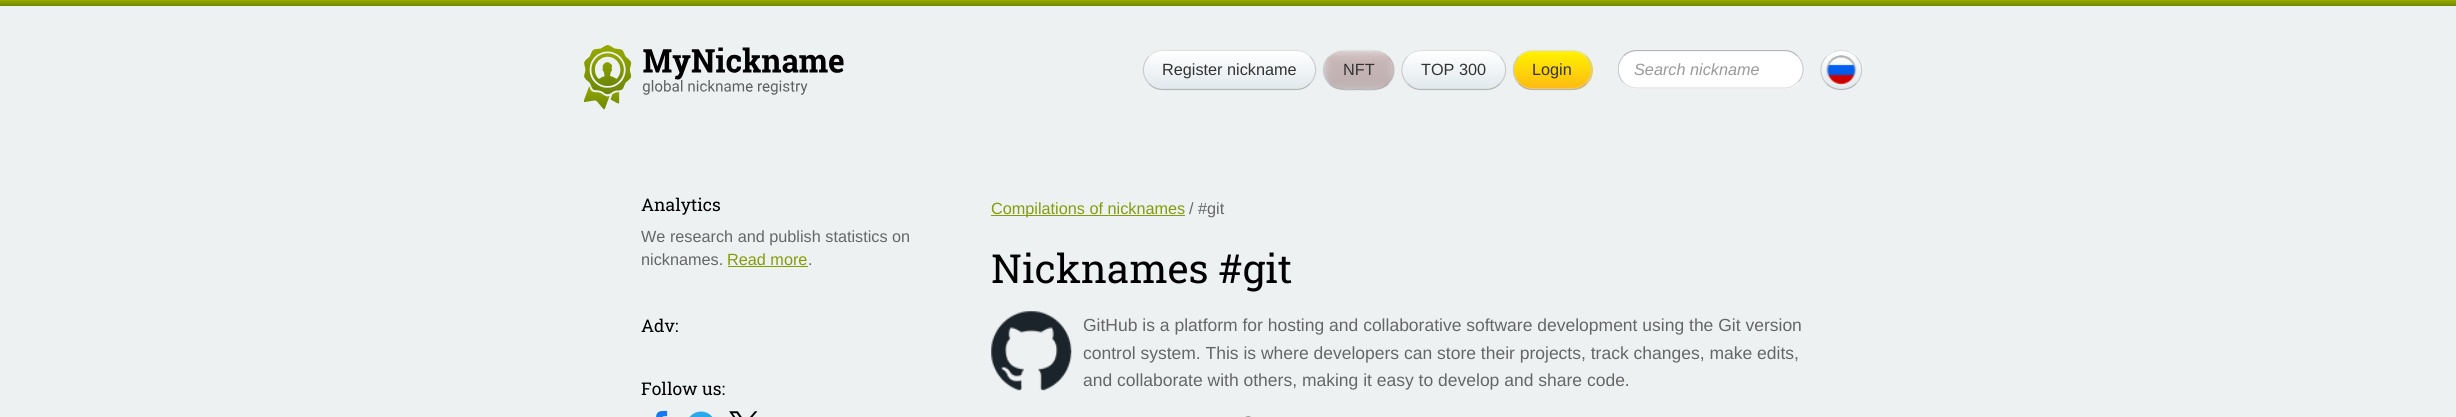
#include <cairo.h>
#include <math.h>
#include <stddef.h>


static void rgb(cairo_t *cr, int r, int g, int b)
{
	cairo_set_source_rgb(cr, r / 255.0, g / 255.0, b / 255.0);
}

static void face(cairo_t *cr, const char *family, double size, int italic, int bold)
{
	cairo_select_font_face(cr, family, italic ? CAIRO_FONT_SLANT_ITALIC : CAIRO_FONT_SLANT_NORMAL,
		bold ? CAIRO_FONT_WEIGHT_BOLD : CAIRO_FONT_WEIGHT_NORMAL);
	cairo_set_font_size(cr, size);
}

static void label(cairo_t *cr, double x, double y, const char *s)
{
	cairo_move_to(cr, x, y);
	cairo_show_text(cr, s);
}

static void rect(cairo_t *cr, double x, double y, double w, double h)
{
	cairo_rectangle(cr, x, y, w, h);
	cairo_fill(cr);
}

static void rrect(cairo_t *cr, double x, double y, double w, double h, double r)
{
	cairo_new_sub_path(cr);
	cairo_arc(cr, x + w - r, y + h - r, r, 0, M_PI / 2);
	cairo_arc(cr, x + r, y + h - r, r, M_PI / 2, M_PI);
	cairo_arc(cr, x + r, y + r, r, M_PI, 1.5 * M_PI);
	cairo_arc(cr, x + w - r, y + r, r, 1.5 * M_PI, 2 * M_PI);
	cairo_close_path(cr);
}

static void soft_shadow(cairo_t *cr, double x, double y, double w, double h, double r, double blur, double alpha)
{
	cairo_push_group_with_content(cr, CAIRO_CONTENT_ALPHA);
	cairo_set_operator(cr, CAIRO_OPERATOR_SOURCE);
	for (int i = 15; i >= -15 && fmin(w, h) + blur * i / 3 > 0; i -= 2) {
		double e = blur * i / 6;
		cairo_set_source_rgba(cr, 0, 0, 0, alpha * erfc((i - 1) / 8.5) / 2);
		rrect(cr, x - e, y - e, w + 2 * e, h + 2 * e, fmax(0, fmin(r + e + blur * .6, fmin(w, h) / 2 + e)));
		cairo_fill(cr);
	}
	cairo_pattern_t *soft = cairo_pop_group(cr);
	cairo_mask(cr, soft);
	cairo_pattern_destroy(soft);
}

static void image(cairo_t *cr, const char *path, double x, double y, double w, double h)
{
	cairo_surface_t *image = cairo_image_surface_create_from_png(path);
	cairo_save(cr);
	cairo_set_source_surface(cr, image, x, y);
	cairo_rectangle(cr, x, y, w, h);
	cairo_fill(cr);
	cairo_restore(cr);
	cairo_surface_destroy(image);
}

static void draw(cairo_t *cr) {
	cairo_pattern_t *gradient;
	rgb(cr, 237, 241, 242);
	cairo_paint(cr);
	gradient = cairo_pattern_create_linear(1228, 0, 1228, 6.3);
	cairo_pattern_add_color_stop_rgba(gradient, 0, 0.592, 0.667, 0, 1);
	cairo_pattern_add_color_stop_rgba(gradient, 1, 0.427, 0.525, 0, 1);
	cairo_set_source(cr, gradient);
	cairo_pattern_destroy(gradient);
	rect(cr, 0, 0, 2456, 6);
	image(cr, "image0.png", 584, 45, 260, 65);
	cairo_save(cr);
	rrect(cr, 1143, 50, 173, 40, 20);
	cairo_clip(cr);
	gradient = cairo_pattern_create_linear(1229, 51, 1229, 89);
	cairo_pattern_add_color_stop_rgba(gradient, 0, 1, 1, 1, 1);
	cairo_pattern_add_color_stop_rgba(gradient, 1, 0.882, 0.914, 0.929, 1);
	cairo_set_source(cr, gradient);
	cairo_pattern_destroy(gradient);
	rect(cr, 1143, 51, 173, 38);
	cairo_restore(cr);
	cairo_new_path(cr);
	cairo_move_to(cr, 1149, 56.5);
	cairo_curve_to(cr, 1152.5, 52.5, 1157.5, 50.5, 1162.5, 50.5);
	cairo_line_to(cr, 1296, 50.5);
	cairo_curve_to(cr, 1301.5, 50.5, 1306.5, 52.5, 1310, 56.5);
	rgb(cr, 225, 225, 225);
	cairo_set_line_width(cr, 1.2);
	cairo_stroke(cr);
	cairo_new_path(cr);
	cairo_move_to(cr, 1310, 56.5);
	cairo_curve_to(cr, 1317.5, 64, 1317.5, 76, 1310, 83.5);
	rgb(cr, 204, 204, 204);
	cairo_stroke(cr);
	cairo_new_path(cr);
	cairo_move_to(cr, 1310, 83.5);
	cairo_curve_to(cr, 1306.5, 87.5, 1301.5, 89.5, 1296, 89.5);
	cairo_line_to(cr, 1162.5, 89.5);
	cairo_curve_to(cr, 1157.5, 89.5, 1152.5, 87.5, 1149, 83.5);
	rgb(cr, 182, 182, 182);
	cairo_stroke(cr);
	cairo_new_path(cr);
	cairo_move_to(cr, 1149, 83.5);
	cairo_curve_to(cr, 1141.5, 76, 1141.5, 64, 1149, 56.5);
	rgb(cr, 204, 204, 204);
	cairo_stroke(cr);
	face(cr, "Liberation Sans", 16.25, 0, 0);
	rgb(cr, 51, 51, 51);
	label(cr, 1162, 75, "Register nickname");
	cairo_save(cr);
	rrect(cr, 1323, 50, 72, 40, 20);
	cairo_clip(cr);
	gradient = cairo_pattern_create_linear(1359, 14, 1359, 51);
	cairo_pattern_add_color_stop_rgba(gradient, 0, 1, 1, 1, 1);
	cairo_pattern_add_color_stop_rgba(gradient, 1, 0.882, 0.914, 0.929, 1);
	cairo_set_source(cr, gradient);
	cairo_pattern_destroy(gradient);
	rect(cr, 1337, 50, 44, 1);
	gradient = cairo_pattern_create_linear(1359, 51, 1359, 89);
	cairo_pattern_add_color_stop_rgba(gradient, 0, 1, 1, 1, 1);
	cairo_pattern_add_color_stop_rgba(gradient, 1, 0.882, 0.914, 0.929, 1);
	cairo_set_source(cr, gradient);
	cairo_pattern_destroy(gradient);
	rect(cr, 1323, 51, 72, 38);
	gradient = cairo_pattern_create_linear(1359, 89, 1359, 126);
	cairo_pattern_add_color_stop_rgba(gradient, 0, 1, 1, 1, 1);
	cairo_pattern_add_color_stop_rgba(gradient, 1, 0.882, 0.914, 0.929, 1);
	cairo_set_source(cr, gradient);
	cairo_pattern_destroy(gradient);
	rect(cr, 1337, 89, 44, 1);
	cairo_restore(cr);
	cairo_new_path(cr);
	cairo_move_to(cr, 1329, 56.5);
	cairo_curve_to(cr, 1336.5, 48.5, 1348.5, 50.5, 1359, 50.5);
	cairo_curve_to(cr, 1369, 50.5, 1381, 48.5, 1388.5, 56.5);
	rgb(cr, 225, 225, 225);
	cairo_stroke(cr);
	cairo_new_path(cr);
	cairo_move_to(cr, 1388.5, 56.5);
	cairo_curve_to(cr, 1396, 64, 1396, 76, 1388.5, 83.5);
	rgb(cr, 204, 204, 204);
	cairo_stroke(cr);
	cairo_new_path(cr);
	cairo_move_to(cr, 1388.5, 83.5);
	cairo_curve_to(cr, 1381, 91.5, 1369, 89.5, 1359, 89.5);
	cairo_curve_to(cr, 1348.5, 89.5, 1336.5, 91.5, 1329, 83.5);
	rgb(cr, 182, 182, 182);
	cairo_stroke(cr);
	cairo_new_path(cr);
	cairo_move_to(cr, 1329, 83.5);
	cairo_curve_to(cr, 1321.5, 76, 1321.5, 64, 1329, 56.5);
	rgb(cr, 204, 204, 204);
	cairo_stroke(cr);
	cairo_save(cr);
	rrect(cr, 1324, 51, 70, 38, 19);
	cairo_clip(cr);
	rgb(cr, 152, 115, 115);
	soft_shadow(cr, 1321, 49, 77, 44, 0, 6, 0.5);
	cairo_restore(cr);
	rgb(cr, 51, 51, 51);
	label(cr, 1343, 75, "NFT");
	cairo_save(cr);
	rrect(cr, 1401, 50, 105, 40, 20);
	cairo_clip(cr);
	gradient = cairo_pattern_create_linear(1454, 51, 1454, 89);
	cairo_pattern_add_color_stop_rgba(gradient, 0, 1, 1, 1, 1);
	cairo_pattern_add_color_stop_rgba(gradient, 1, 0.882, 0.914, 0.929, 1);
	cairo_set_source(cr, gradient);
	cairo_pattern_destroy(gradient);
	rect(cr, 1401, 51, 105, 38);
	cairo_restore(cr);
	cairo_new_path(cr);
	cairo_move_to(cr, 1407.5, 56.5);
	cairo_curve_to(cr, 1411, 52.5, 1416, 50.5, 1421, 50.5);
	cairo_line_to(cr, 1486, 50.5);
	cairo_curve_to(cr, 1491.5, 50.5, 1496.5, 52.5, 1500, 56.5);
	rgb(cr, 225, 225, 225);
	cairo_stroke(cr);
	cairo_new_path(cr);
	cairo_move_to(cr, 1500, 56.5);
	cairo_curve_to(cr, 1507.5, 64, 1507.5, 76, 1500, 83.5);
	rgb(cr, 204, 204, 204);
	cairo_stroke(cr);
	cairo_new_path(cr);
	cairo_move_to(cr, 1500, 83.5);
	cairo_curve_to(cr, 1496.5, 87.5, 1491.5, 89.5, 1486, 89.5);
	cairo_line_to(cr, 1421, 89.5);
	cairo_curve_to(cr, 1416, 89.5, 1411, 87.5, 1407.5, 83.5);
	rgb(cr, 182, 182, 182);
	cairo_stroke(cr);
	cairo_new_path(cr);
	cairo_move_to(cr, 1407.5, 83.5);
	cairo_curve_to(cr, 1400, 76, 1400, 64, 1407.5, 56.5);
	rgb(cr, 204, 204, 204);
	cairo_stroke(cr);
	rgb(cr, 51, 51, 51);
	label(cr, 1421, 75, "TOP 300");
	cairo_save(cr);
	rrect(cr, 1513, 50, 80, 40, 20);
	cairo_clip(cr);
	gradient = cairo_pattern_create_linear(1553, 51, 1553, 89);
	cairo_pattern_add_color_stop_rgba(gradient, 0, 1, 0.949, 0, 1);
	cairo_pattern_add_color_stop_rgba(gradient, 1, 0.992, 0.729, 0.071, 1);
	cairo_set_source(cr, gradient);
	cairo_pattern_destroy(gradient);
	rect(cr, 1513, 51, 80, 38);
	cairo_restore(cr);
	cairo_set_source_rgba(cr, 1, 1, 1, 0.25);
	cairo_new_path(cr);
	cairo_move_to(cr, 1514, 69);
	cairo_line_to(cr, 1514, 70);
	cairo_curve_to(cr, 1514, 80, 1523, 89, 1533, 89);
	cairo_line_to(cr, 1572, 89);
	cairo_curve_to(cr, 1582, 89, 1591, 80, 1591, 70);
	cairo_line_to(cr, 1591, 69);
	cairo_curve_to(cr, 1591, 79, 1583, 88, 1572, 88);
	cairo_line_to(cr, 1532, 88);
	cairo_curve_to(cr, 1522, 88, 1514, 79, 1514, 69);
	cairo_close_path(cr);
	cairo_fill(cr);
	cairo_new_path(cr);
	cairo_move_to(cr, 1519, 56.5);
	cairo_curve_to(cr, 1522.5, 52.5, 1527.5, 50.5, 1532.5, 50.5);
	cairo_line_to(cr, 1572.5, 50.5);
	cairo_curve_to(cr, 1577.5, 50.5, 1582.5, 52.5, 1586, 56.5);
	rgb(cr, 225, 225, 225);
	cairo_stroke(cr);
	cairo_new_path(cr);
	cairo_move_to(cr, 1586, 56.5);
	cairo_curve_to(cr, 1593.5, 64, 1593.5, 76, 1586, 83.5);
	rgb(cr, 204, 204, 204);
	cairo_stroke(cr);
	cairo_new_path(cr);
	cairo_move_to(cr, 1586, 83.5);
	cairo_curve_to(cr, 1582.5, 87.5, 1577.5, 89.5, 1572.5, 89.5);
	cairo_line_to(cr, 1532.5, 89.5);
	cairo_curve_to(cr, 1527.5, 89.5, 1522.5, 87.5, 1519, 83.5);
	rgb(cr, 182, 182, 182);
	cairo_stroke(cr);
	cairo_new_path(cr);
	cairo_move_to(cr, 1519, 83.5);
	cairo_curve_to(cr, 1511.5, 76, 1511.5, 64, 1519, 56.5);
	rgb(cr, 204, 204, 204);
	cairo_stroke(cr);
	rgb(cr, 51, 51, 51);
	label(cr, 1532, 75, "Login");
	rgb(cr, 255, 255, 255);
	rrect(cr, 1618, 50, 186, 39, 19.5);
	cairo_fill(cr);
	cairo_save(cr);
	cairo_rectangle(cr, 1618, 50, 186, 39);
	cairo_clip(cr);
	cairo_new_path(cr);
	cairo_move_to(cr, 1623.5, 56);
	cairo_curve_to(cr, 1627, 52.5, 1632, 50.5, 1637, 50.5);
	cairo_line_to(cr, 1784.5, 50.5);
	cairo_curve_to(cr, 1789.5, 50.5, 1794, 52.5, 1797.5, 56);
	rgb(cr, 181, 181, 181);
	cairo_stroke(cr);
	cairo_restore(cr);
	cairo_new_path(cr);
	cairo_move_to(cr, 1797.5, 56);
	cairo_curve_to(cr, 1805, 63.5, 1805, 75.5, 1797.5, 82.5);
	rgb(cr, 202, 202, 202);
	cairo_stroke(cr);
	cairo_new_path(cr);
	cairo_move_to(cr, 1797.5, 82.5);
	cairo_curve_to(cr, 1794, 86, 1789.5, 88, 1784.5, 88);
	cairo_line_to(cr, 1637, 88);
	cairo_curve_to(cr, 1632, 88, 1627, 86, 1623.5, 82.5);
	rgb(cr, 224, 224, 224);
	cairo_stroke(cr);
	cairo_save(cr);
	cairo_rectangle(cr, 1618, 50, 186, 39);
	cairo_clip(cr);
	cairo_new_path(cr);
	cairo_move_to(cr, 1623.5, 82.5);
	cairo_curve_to(cr, 1616.5, 75.5, 1616.5, 63.5, 1623.5, 56);
	rgb(cr, 202, 202, 202);
	cairo_stroke(cr);
	cairo_restore(cr);
	face(cr, "Liberation Sans", 16.25, 1, 0);
	rgb(cr, 153, 153, 153);
	label(cr, 1634, 75, "Search nickname");
	cairo_save(cr);
	rrect(cr, 1820, 50, 43, 40, 20);
	cairo_clip(cr);
	gradient = cairo_pattern_create_linear(1841, 14, 1841, 51);
	cairo_pattern_add_color_stop_rgba(gradient, 0, 1, 1, 1, 1);
	cairo_pattern_add_color_stop_rgba(gradient, 1, 0.882, 0.914, 0.929, 1);
	cairo_set_source(cr, gradient);
	cairo_pattern_destroy(gradient);
	rect(cr, 1834, 50, 15, 1);
	gradient = cairo_pattern_create_linear(1841, 51, 1841, 89);
	cairo_pattern_add_color_stop_rgba(gradient, 0, 1, 1, 1, 1);
	cairo_pattern_add_color_stop_rgba(gradient, 1, 0.882, 0.914, 0.929, 1);
	cairo_set_source(cr, gradient);
	cairo_pattern_destroy(gradient);
	rect(cr, 1820, 51, 43, 38);
	gradient = cairo_pattern_create_linear(1841, 89, 1841, 126);
	cairo_pattern_add_color_stop_rgba(gradient, 0, 1, 1, 1, 1);
	cairo_pattern_add_color_stop_rgba(gradient, 1, 0.882, 0.914, 0.929, 1);
	cairo_set_source(cr, gradient);
	cairo_pattern_destroy(gradient);
	rect(cr, 1834, 89, 15, 1);
	cairo_restore(cr);
	cairo_new_path(cr);
	cairo_move_to(cr, 1826.5, 56.5);
	cairo_curve_to(cr, 1834, 48.5, 1848.5, 48.5, 1856, 56.5);
	rgb(cr, 225, 225, 225);
	cairo_stroke(cr);
	cairo_new_path(cr);
	cairo_move_to(cr, 1856, 56.5);
	cairo_curve_to(cr, 1863.5, 64, 1863.5, 76, 1856, 83.5);
	rgb(cr, 204, 204, 204);
	cairo_stroke(cr);
	cairo_new_path(cr);
	cairo_move_to(cr, 1856, 83.5);
	cairo_curve_to(cr, 1848.5, 91.5, 1834, 91.5, 1826.5, 83.5);
	rgb(cr, 182, 182, 182);
	cairo_stroke(cr);
	cairo_new_path(cr);
	cairo_move_to(cr, 1826.5, 83.5);
	cairo_curve_to(cr, 1819, 76, 1819, 64, 1826.5, 56.5);
	rgb(cr, 204, 204, 204);
	cairo_stroke(cr);
	image(cr, "image1.png", 1826, 55, 31, 31);
	face(cr, "Roboto Slab", 17.5, 0, 0);
	rgb(cr, 0, 0, 0);
	label(cr, 641, 211, "Analytics");
	face(cr, "Liberation Sans", 16.25, 0, 0);
	rgb(cr, 102, 102, 102);
	label(cr, 641, 242, "We research and publish statistics on");
	label(cr, 641, 265, "nicknames.");
	rgb(cr, 133, 155, 10);
	label(cr, 727, 265, "Read more");
	rect(cr, 728, 266, 80, 1);
	rgb(cr, 102, 102, 102);
	label(cr, 808, 265, ".");
	face(cr, "Roboto Slab", 17.5, 0, 0);
	rgb(cr, 0, 0, 0);
	label(cr, 641, 332, "Adv:");
	label(cr, 641, 395, "Follow us:");
	image(cr, "image2.png", 656, 410, 12, 7);
	image(cr, "image3.png", 689, 411, 24, 6);
	image(cr, "image4.png", 729, 411, 29, 6);
	rgb(cr, 133, 155, 10);
	rect(cr, 991, 215, 194, 1);
	face(cr, "Liberation Sans", 16.25, 0, 0);
	label(cr, 991, 214, "Compilations of nicknames");
	rgb(cr, 102, 102, 102);
	label(cr, 1189, 214, "/ #git");
	face(cr, "Roboto Slab", 40, 0, 0);
	rgb(cr, 0, 0, 0);
	label(cr, 991, 283, "Nicknames #git");
	image(cr, "image5.png", 991, 311, 81, 80);
	face(cr, "Liberation Sans", 17.5, 0, 0);
	rgb(cr, 102, 102, 102);
	label(cr, 1083, 331, "GitHub is a platform for hosting and collaborative software development using the Git version");
	label(cr, 1083, 359, "control system. This is where developers can store their projects, track changes, make edits,");
	label(cr, 1083, 386, "and collaborate with others, making it easy to develop and share code.");
	image(cr, "image6.png", 1245, 416, 6, 1);
}

int main(void) {
	cairo_surface_t *surface = cairo_image_surface_create(CAIRO_FORMAT_RGB24, 2456, 417);
	cairo_t *cr = cairo_create(surface);
	cairo_font_options_t *options = cairo_font_options_create();
	cairo_font_options_set_hint_metrics(options, CAIRO_HINT_METRICS_OFF);
	cairo_font_options_set_hint_style(options, CAIRO_HINT_STYLE_NONE);
	cairo_set_font_options(cr, options);
	cairo_set_miter_limit(cr, 4);
	draw(cr);
	cairo_surface_write_to_png(surface, "render.png");
	cairo_font_options_destroy(options);
	cairo_destroy(cr);
	cairo_surface_destroy(surface);
	return 0;
}
